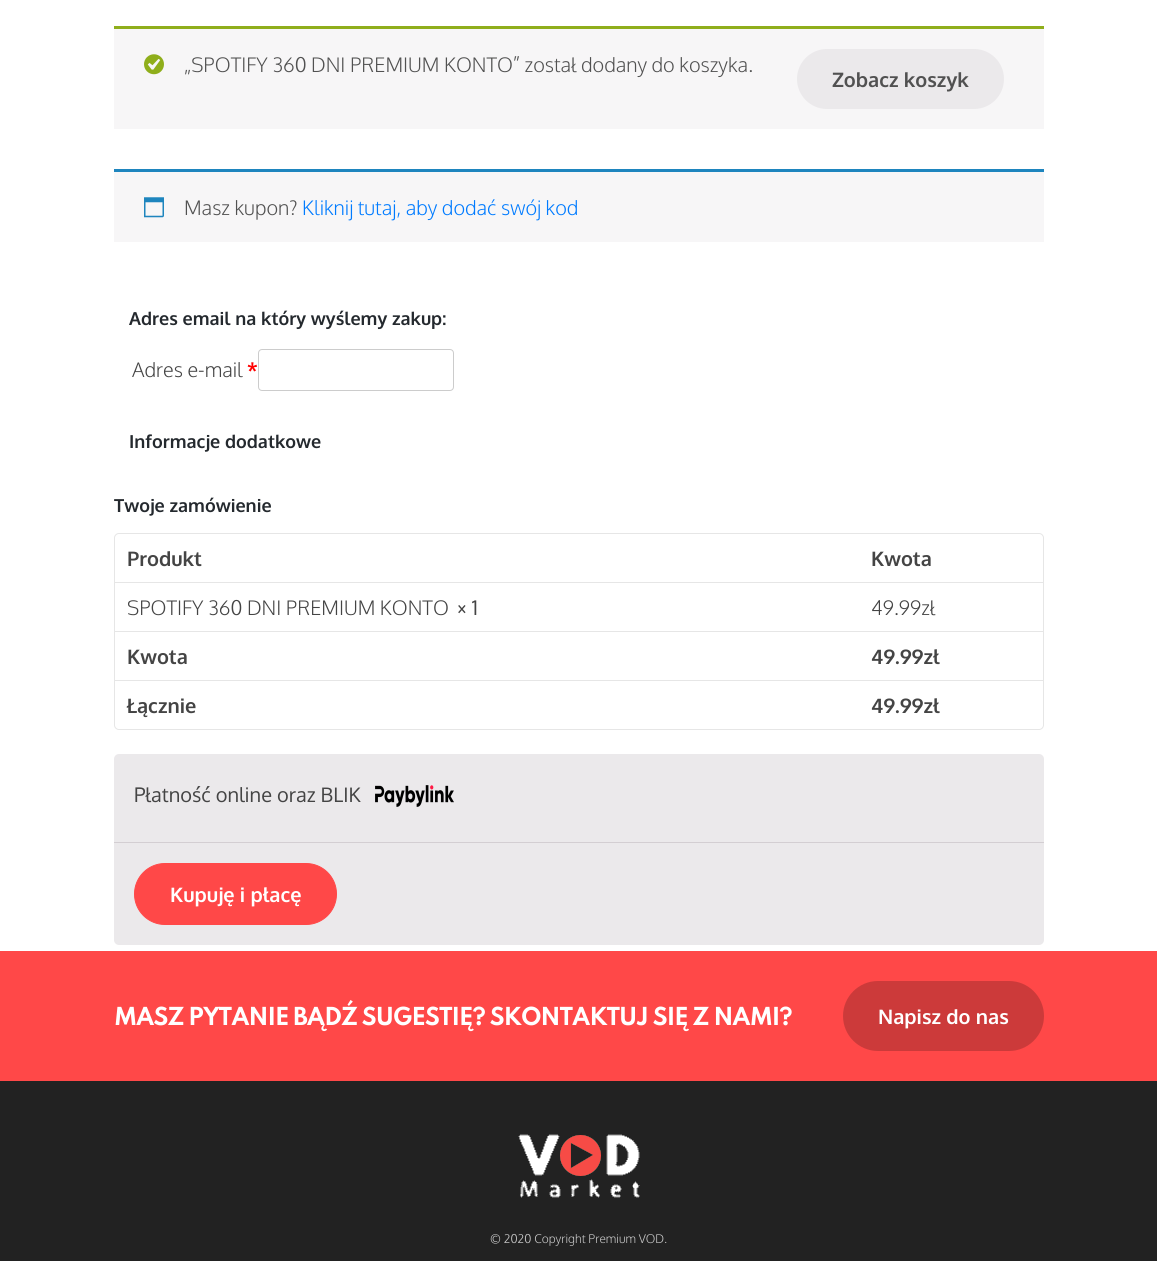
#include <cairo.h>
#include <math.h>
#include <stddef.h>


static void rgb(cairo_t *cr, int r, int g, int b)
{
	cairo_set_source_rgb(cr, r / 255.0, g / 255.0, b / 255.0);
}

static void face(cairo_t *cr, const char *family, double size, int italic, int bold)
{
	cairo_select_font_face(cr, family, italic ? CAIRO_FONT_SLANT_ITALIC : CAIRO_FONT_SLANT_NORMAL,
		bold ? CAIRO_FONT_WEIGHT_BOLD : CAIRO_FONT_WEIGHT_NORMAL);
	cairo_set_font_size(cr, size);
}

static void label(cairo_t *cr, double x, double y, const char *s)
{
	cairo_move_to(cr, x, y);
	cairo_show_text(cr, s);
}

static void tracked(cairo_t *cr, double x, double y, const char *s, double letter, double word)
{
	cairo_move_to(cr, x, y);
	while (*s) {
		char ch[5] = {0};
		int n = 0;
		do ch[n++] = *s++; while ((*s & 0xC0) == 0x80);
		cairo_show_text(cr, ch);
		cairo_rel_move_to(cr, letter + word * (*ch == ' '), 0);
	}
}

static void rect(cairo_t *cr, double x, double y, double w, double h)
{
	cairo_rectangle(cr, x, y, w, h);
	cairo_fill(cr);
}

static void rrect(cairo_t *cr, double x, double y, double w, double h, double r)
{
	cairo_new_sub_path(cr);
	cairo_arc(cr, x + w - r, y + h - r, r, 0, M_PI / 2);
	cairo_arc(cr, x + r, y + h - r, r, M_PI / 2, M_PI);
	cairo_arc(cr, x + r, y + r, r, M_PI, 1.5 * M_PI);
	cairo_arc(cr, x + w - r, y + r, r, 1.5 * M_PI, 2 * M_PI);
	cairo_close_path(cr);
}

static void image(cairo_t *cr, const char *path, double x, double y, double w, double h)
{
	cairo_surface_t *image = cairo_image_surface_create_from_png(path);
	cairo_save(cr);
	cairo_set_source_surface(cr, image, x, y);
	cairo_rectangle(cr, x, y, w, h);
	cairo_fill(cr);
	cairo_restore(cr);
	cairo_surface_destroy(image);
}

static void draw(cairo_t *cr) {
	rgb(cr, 255, 255, 255);
	cairo_paint(cr);
	rgb(cr, 247, 246, 247);
	rect(cr, 114, 29, 930, 100);
	rgb(cr, 143, 174, 27);
	rect(cr, 114, 26, 930, 3);
	image(cr, "image0.png", 144, 54, 20, 21);
	face(cr, "Oxygen Light", 20, 0, 0);
	rgb(cr, 81, 81, 81);
	label(cr, 184, 72, "„SPOTIFY 360 DNI PREMIUM KONTO” został dodany do koszyka.");
	rgb(cr, 235, 233, 235);
	rrect(cr, 797, 49, 207, 60, 30);
	cairo_fill(cr);
	face(cr, "Oxygen", 20, 0, 1);
	rgb(cr, 81, 81, 81);
	label(cr, 832, 87, "Zobacz koszyk");
	rgb(cr, 247, 246, 247);
	rect(cr, 114, 172, 930, 70);
	rgb(cr, 30, 133, 190);
	rect(cr, 114, 169, 930, 3);
	image(cr, "image1.png", 144, 197, 20, 21);
	face(cr, "Oxygen Light", 20, 0, 0);
	rgb(cr, 81, 81, 81);
	label(cr, 184, 215, "Masz kupon?");
	rgb(cr, 0, 123, 255);
	label(cr, 302, 215, "Kliknij tutaj, aby dodać swój kod");
	face(cr, "Oxygen", 18, 0, 1);
	rgb(cr, 36, 41, 46);
	label(cr, 129, 325, "Adres email na który wyślemy zakup:");
	face(cr, "Oxygen Light", 20, 0, 0);
	rgb(cr, 68, 68, 68);
	label(cr, 132, 377, "Adres e-mail");
	face(cr, "Oxygen", 20, 0, 1);
	rgb(cr, 255, 0, 0);
	label(cr, 247, 377, "*");
	rrect(cr, 258.5, 349.5, 195, 41, 3.5);
	rgb(cr, 204, 204, 204);
	cairo_set_line_width(cr, 1);
	cairo_stroke(cr);
	face(cr, "Oxygen", 18, 0, 1);
	rgb(cr, 36, 41, 46);
	label(cr, 129, 448, "Informacje dodatkowe");
	label(cr, 114, 512, "Twoje zamówienie");
	rrect(cr, 114.5, 533.5, 929, 196, 4.5);
	rgb(cr, 230, 230, 230);
	cairo_stroke(cr);
	face(cr, "Oxygen", 20, 0, 1);
	rgb(cr, 68, 68, 68);
	label(cr, 127, 566, "Produkt");
	label(cr, 871, 566, "Kwota");
	rgb(cr, 230, 230, 230);
	rect(cr, 115, 582, 928, 1);
	face(cr, "Oxygen Light", 20, 0, 0);
	rgb(cr, 68, 68, 68);
	label(cr, 127, 615, "SPOTIFY 360 DNI PREMIUM KONTO");
	face(cr, "Oxygen", 20, 0, 0);
	label(cr, 457, 615, "× 1");
	face(cr, "Oxygen Light", 20, 0, 0);
	label(cr, 871, 615, "49.99zł");
	rgb(cr, 230, 230, 230);
	rect(cr, 115, 631, 928, 1);
	face(cr, "Oxygen", 20, 0, 1);
	rgb(cr, 68, 68, 68);
	label(cr, 127, 664, "Kwota");
	label(cr, 871, 664, "49.99zł");
	rgb(cr, 230, 230, 230);
	rect(cr, 115, 680, 928, 1);
	rgb(cr, 68, 68, 68);
	label(cr, 127, 713, "Łącznie");
	label(cr, 871, 713, "49.99zł");
	rgb(cr, 235, 233, 235);
	rrect(cr, 114, 754, 930, 191, 5);
	cairo_fill(cr);
	rgb(cr, 211, 206, 210);
	rect(cr, 114, 842, 930, 1);
	face(cr, "Oxygen", 20, 0, 0);
	rgb(cr, 68, 68, 68);
	label(cr, 134, 802, "Płatność online oraz BLIK");
	image(cr, "image2.png", 375, 785, 79, 22);
	rgb(cr, 255, 72, 72);
	rrect(cr, 134.5, 863.5, 202, 61, 30.5);
	cairo_fill_preserve(cr);
	cairo_stroke(cr);
	face(cr, "Oxygen", 20, 0, 1);
	rgb(cr, 255, 255, 255);
	label(cr, 170, 902, "Kupuję i płacę");
	rgb(cr, 255, 72, 72);
	rect(cr, 0, 951, 1157, 130);
	face(cr, "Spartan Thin", 22, 0, 1);
	rgb(cr, 255, 255, 255);
	tracked(cr, 114, 1025, "MASZ PYTANIE BĄDŹ SUGESTIĘ? SKONTAKTUJ SIĘ Z NAMI?", -1, 0);
	rgb(cr, 204, 58, 58);
	rrect(cr, 843, 981, 201, 70, 35);
	cairo_fill(cr);
	face(cr, "Oxygen", 20, 0, 1);
	rgb(cr, 255, 255, 255);
	label(cr, 878, 1024, "Napisz do nas");
	rgb(cr, 34, 34, 34);
	rect(cr, 0, 1081, 1157, 180);
	image(cr, "image3.png", 518, 1134, 122, 64);
	face(cr, "Oxygen Light", 12, 0, 0);
	rgb(cr, 204, 204, 204);
	label(cr, 490, 1243, "© 2020 Copyright Premium VOD.");
}

int main(void) {
	cairo_surface_t *surface = cairo_image_surface_create(CAIRO_FORMAT_RGB24, 1157, 1261);
	cairo_t *cr = cairo_create(surface);
	cairo_font_options_t *options = cairo_font_options_create();
	cairo_font_options_set_hint_metrics(options, CAIRO_HINT_METRICS_OFF);
	cairo_font_options_set_hint_style(options, CAIRO_HINT_STYLE_NONE);
	cairo_set_font_options(cr, options);
	cairo_set_miter_limit(cr, 4);
	draw(cr);
	cairo_surface_write_to_png(surface, "render.png");
	cairo_font_options_destroy(options);
	cairo_destroy(cr);
	cairo_surface_destroy(surface);
	return 0;
}
